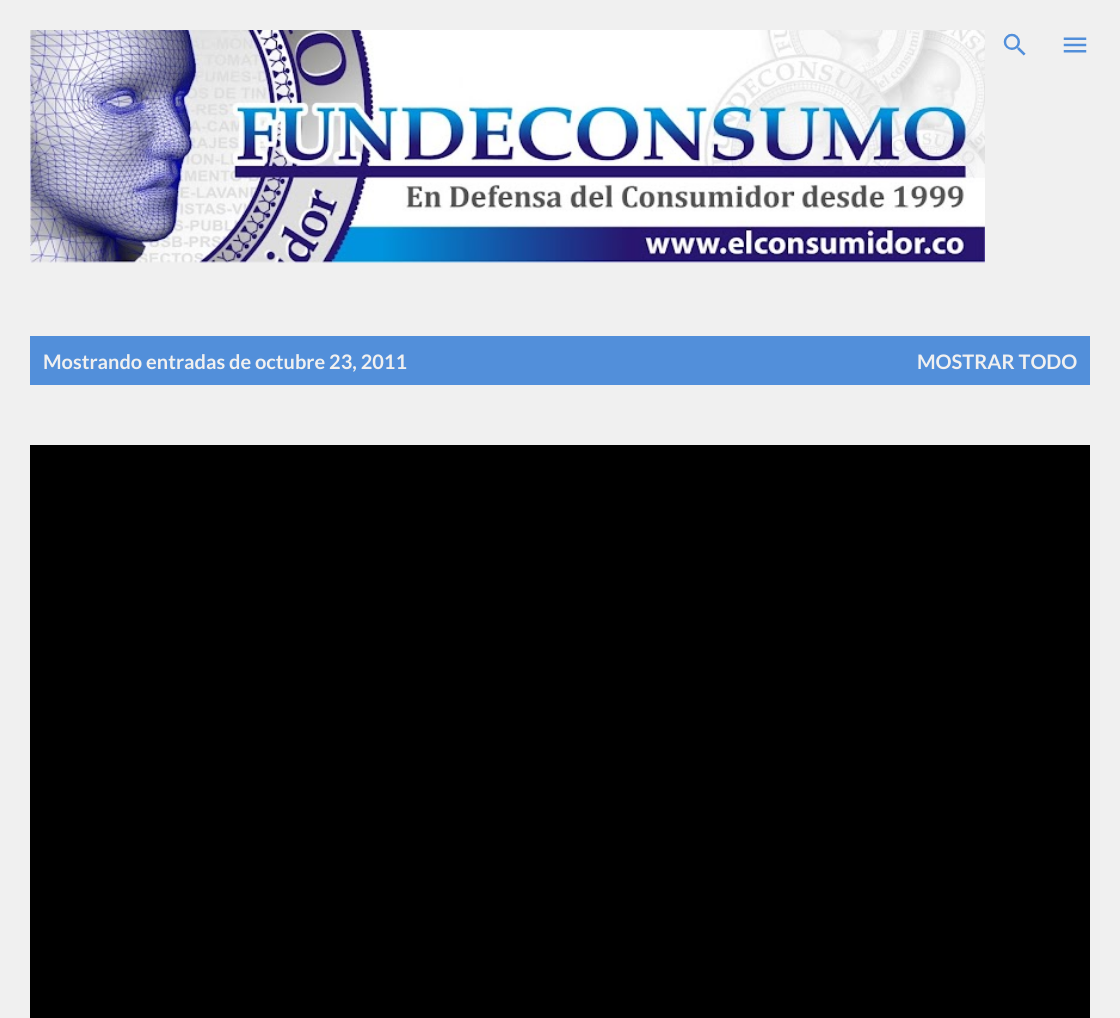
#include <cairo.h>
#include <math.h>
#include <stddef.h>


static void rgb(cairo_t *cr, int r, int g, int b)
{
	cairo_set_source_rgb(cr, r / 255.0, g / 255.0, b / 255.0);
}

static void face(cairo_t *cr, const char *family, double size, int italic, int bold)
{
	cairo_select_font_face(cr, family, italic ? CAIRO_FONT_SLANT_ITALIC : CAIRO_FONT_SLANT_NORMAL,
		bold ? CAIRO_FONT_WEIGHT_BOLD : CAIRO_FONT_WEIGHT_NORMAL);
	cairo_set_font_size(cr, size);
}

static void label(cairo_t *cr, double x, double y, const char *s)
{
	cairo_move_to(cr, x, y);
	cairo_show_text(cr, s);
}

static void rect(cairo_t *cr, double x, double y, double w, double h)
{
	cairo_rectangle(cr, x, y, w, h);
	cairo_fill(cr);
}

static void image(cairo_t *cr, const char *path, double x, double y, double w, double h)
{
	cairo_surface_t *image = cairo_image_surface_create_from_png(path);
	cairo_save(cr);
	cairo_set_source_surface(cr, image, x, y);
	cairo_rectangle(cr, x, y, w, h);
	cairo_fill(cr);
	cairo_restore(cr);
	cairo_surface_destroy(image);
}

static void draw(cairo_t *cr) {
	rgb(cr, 240, 240, 240);
	cairo_paint(cr);
	image(cr, "image0.png", 30, 30, 955, 233);
	image(cr, "image1.png", 1003, 33, 23, 23);
	image(cr, "image2.png", 1063, 37, 24, 16);
	rgb(cr, 82, 143, 218);
	rect(cr, 30, 336, 1060, 49);
	face(cr, "Lato", 20, 0, 1);
	rgb(cr, 240, 240, 240);
	label(cr, 43, 369, "Mostrando entradas de octubre 23, 2011");
	label(cr, 917, 369, "MOSTRAR TODO");
	rgb(cr, 0, 0, 0);
	rect(cr, 30, 445, 1060, 573);
}

int main(void) {
	cairo_surface_t *surface = cairo_image_surface_create(CAIRO_FORMAT_RGB24, 1120, 1018);
	cairo_t *cr = cairo_create(surface);
	cairo_font_options_t *options = cairo_font_options_create();
	cairo_font_options_set_hint_metrics(options, CAIRO_HINT_METRICS_OFF);
	cairo_font_options_set_hint_style(options, CAIRO_HINT_STYLE_NONE);
	cairo_set_font_options(cr, options);
	cairo_set_miter_limit(cr, 4);
	draw(cr);
	cairo_surface_write_to_png(surface, "render.png");
	cairo_font_options_destroy(options);
	cairo_destroy(cr);
	cairo_surface_destroy(surface);
	return 0;
}
